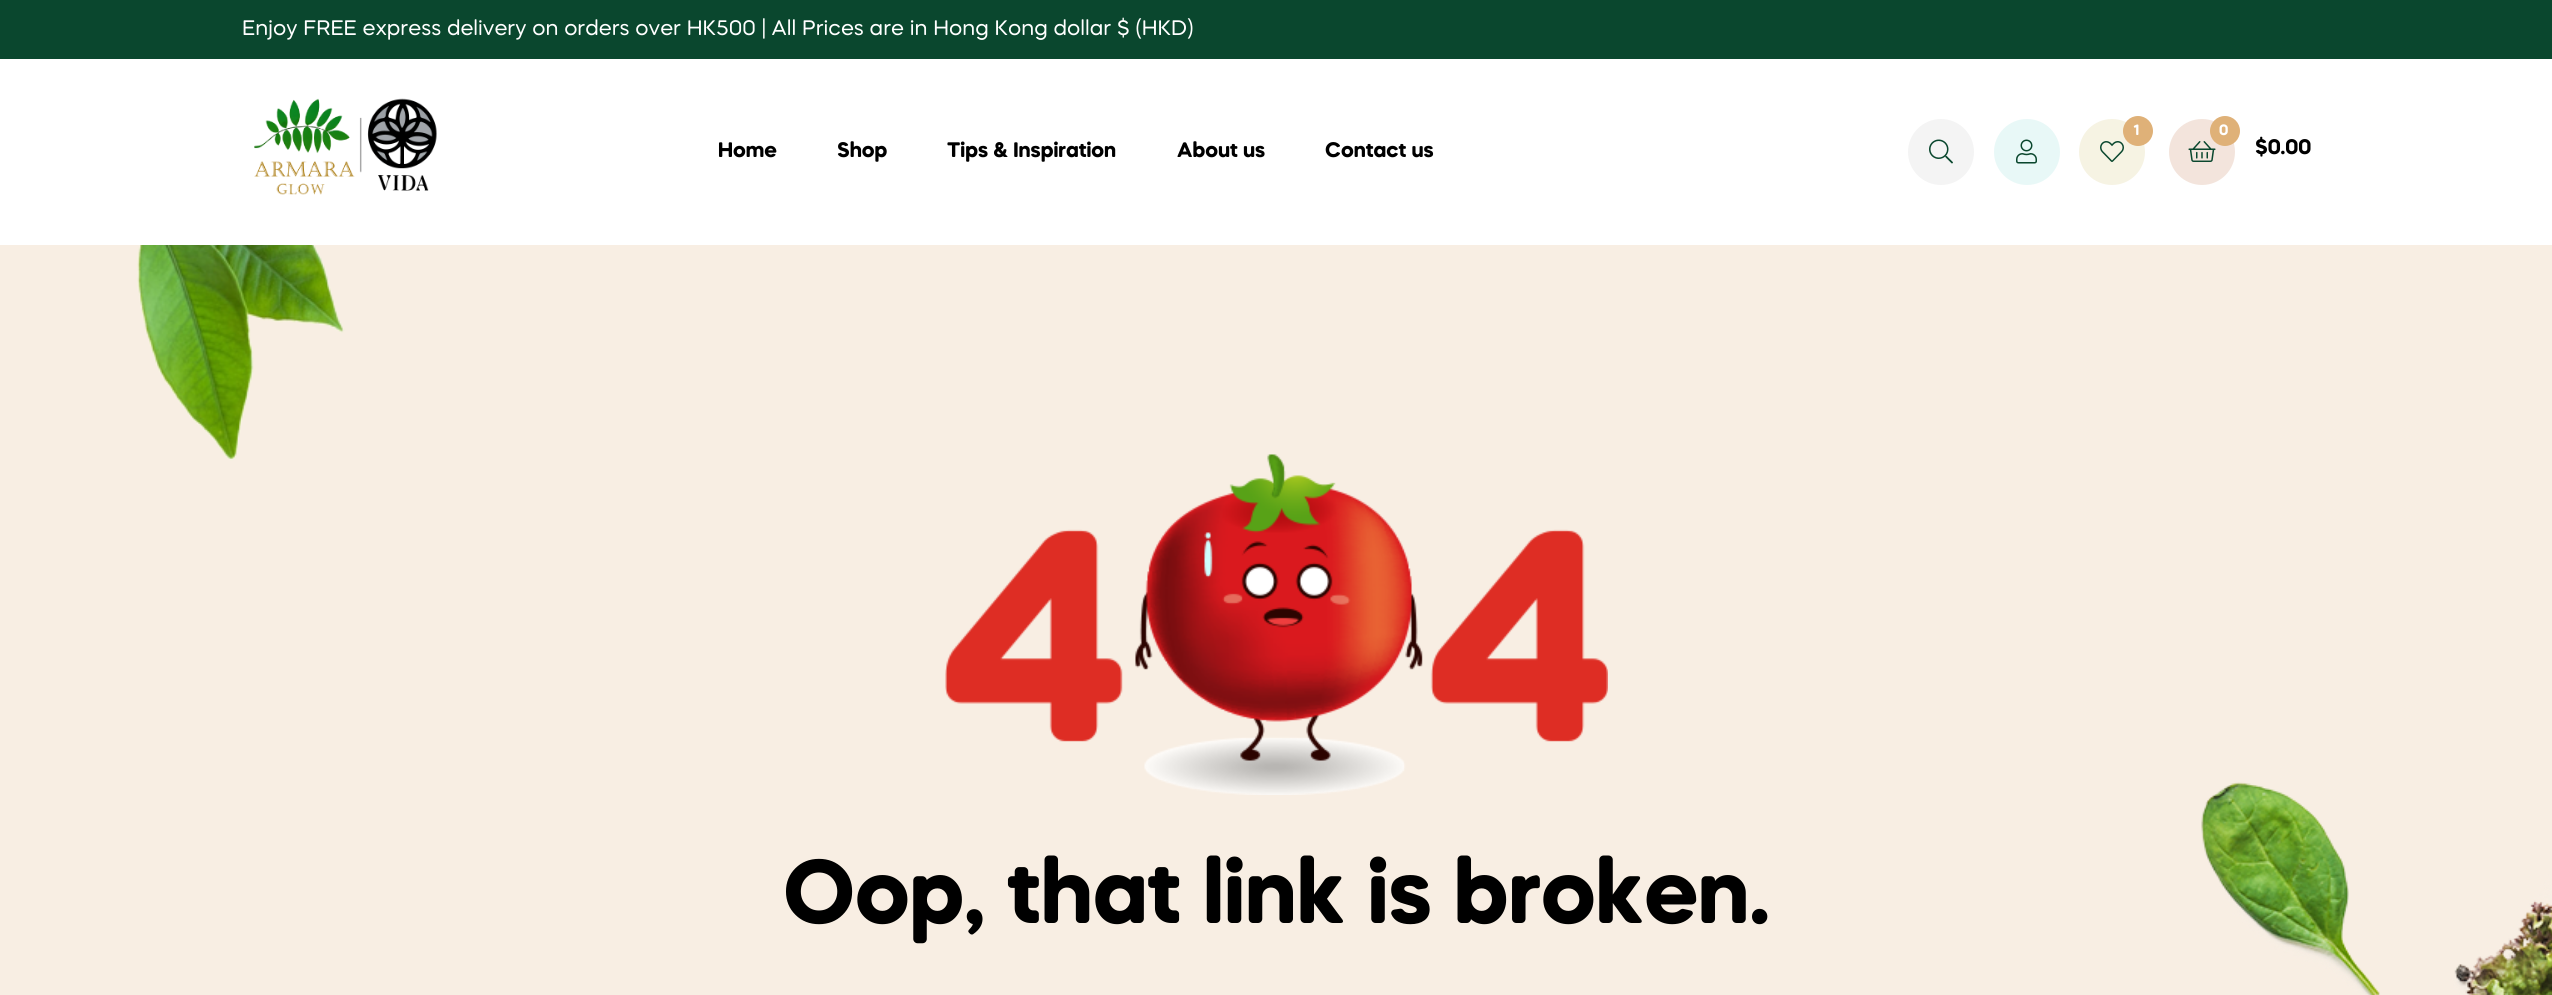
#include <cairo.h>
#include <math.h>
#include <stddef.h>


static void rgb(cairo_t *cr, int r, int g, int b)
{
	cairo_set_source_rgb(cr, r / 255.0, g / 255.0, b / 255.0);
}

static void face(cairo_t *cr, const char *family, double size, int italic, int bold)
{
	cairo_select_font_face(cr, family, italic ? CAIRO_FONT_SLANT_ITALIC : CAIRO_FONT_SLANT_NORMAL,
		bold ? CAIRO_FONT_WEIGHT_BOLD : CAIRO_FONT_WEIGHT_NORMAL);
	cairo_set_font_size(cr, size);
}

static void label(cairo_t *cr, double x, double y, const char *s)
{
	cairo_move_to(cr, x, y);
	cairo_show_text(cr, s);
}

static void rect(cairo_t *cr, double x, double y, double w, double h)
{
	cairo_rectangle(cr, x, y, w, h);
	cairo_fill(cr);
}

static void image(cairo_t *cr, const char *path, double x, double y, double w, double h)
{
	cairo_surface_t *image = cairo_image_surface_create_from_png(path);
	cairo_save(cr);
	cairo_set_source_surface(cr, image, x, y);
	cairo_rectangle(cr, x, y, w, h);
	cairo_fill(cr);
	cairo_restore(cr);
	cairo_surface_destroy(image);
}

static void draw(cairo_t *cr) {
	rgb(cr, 248, 238, 227);
	cairo_paint(cr);
	rgb(cr, 255, 255, 255);
	rect(cr, 0, 59, 2552, 186);
	rgb(cr, 10, 71, 46);
	rect(cr, 0, 0, 2552, 59);
	face(cr, "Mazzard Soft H", 21, 0, 0);
	rgb(cr, 255, 255, 255);
	label(cr, 242, 35, "Enjoy FREE express delivery on orders over HK500 | All Prices are in Hong Kong dollar $ (HKD)");
	image(cr, "image0.png", 254, 98, 183, 97);
	face(cr, "Mazzard Soft H", 21, 0, 1);
	rgb(cr, 0, 0, 0);
	label(cr, 718, 157, "Home");
	label(cr, 837, 157, "Shop");
	label(cr, 947, 157, "Tips & Inspiration");
	label(cr, 1177, 157, "About us");
	label(cr, 1325, 157, "Contact us");
	rgb(cr, 244, 244, 244);
	cairo_new_path(cr);
	cairo_arc(cr, 1941, 152, 33, 0, 2 * M_PI);
	cairo_fill(cr);
	image(cr, "image1.png", 1929, 139, 24, 25);
	rgb(cr, 232, 248, 247);
	cairo_arc(cr, 2027, 152, 33, 0, 2 * M_PI);
	cairo_fill(cr);
	image(cr, "image2.png", 2016, 139, 21, 25);
	rgb(cr, 246, 243, 227);
	cairo_arc(cr, 2112, 152, 33, 0, 2 * M_PI);
	cairo_fill(cr);
	image(cr, "image3.png", 2100, 141, 24, 21);
	rgb(cr, 223, 177, 120);
	cairo_arc(cr, 2138, 131, 15, 0, 2 * M_PI);
	cairo_fill(cr);
	face(cr, "Mazzard Soft H", 15, 0, 1);
	rgb(cr, 255, 255, 255);
	label(cr, 2133, 135, "1");
	rgb(cr, 243, 228, 220);
	cairo_new_path(cr);
	cairo_arc(cr, 2202, 152, 33, 0, 2 * M_PI);
	cairo_fill(cr);
	image(cr, "image4.png", 2188, 141, 28, 21);
	rgb(cr, 223, 177, 120);
	cairo_arc(cr, 2225, 131, 15, 0, 2 * M_PI);
	cairo_fill(cr);
	rgb(cr, 255, 255, 255);
	label(cr, 2219, 135, "0");
	face(cr, "Mazzard Soft H", 21, 0, 1);
	rgb(cr, 0, 0, 0);
	label(cr, 2255, 154, "$0.00");
	image(cr, "image5.png", 137, 245, 2415, 750);
	image(cr, "image6.png", 945, 454, 663, 341);
	face(cr, "Mazzard Soft H", 90, 0, 1);
	label(cr, 783, 923, "Oop, that link is broken.");
}

int main(void) {
	cairo_surface_t *surface = cairo_image_surface_create(CAIRO_FORMAT_RGB24, 2552, 995);
	cairo_t *cr = cairo_create(surface);
	cairo_font_options_t *options = cairo_font_options_create();
	cairo_font_options_set_hint_metrics(options, CAIRO_HINT_METRICS_OFF);
	cairo_font_options_set_hint_style(options, CAIRO_HINT_STYLE_NONE);
	cairo_set_font_options(cr, options);
	cairo_set_miter_limit(cr, 4);
	draw(cr);
	cairo_surface_write_to_png(surface, "render.png");
	cairo_font_options_destroy(options);
	cairo_destroy(cr);
	cairo_surface_destroy(surface);
	return 0;
}
